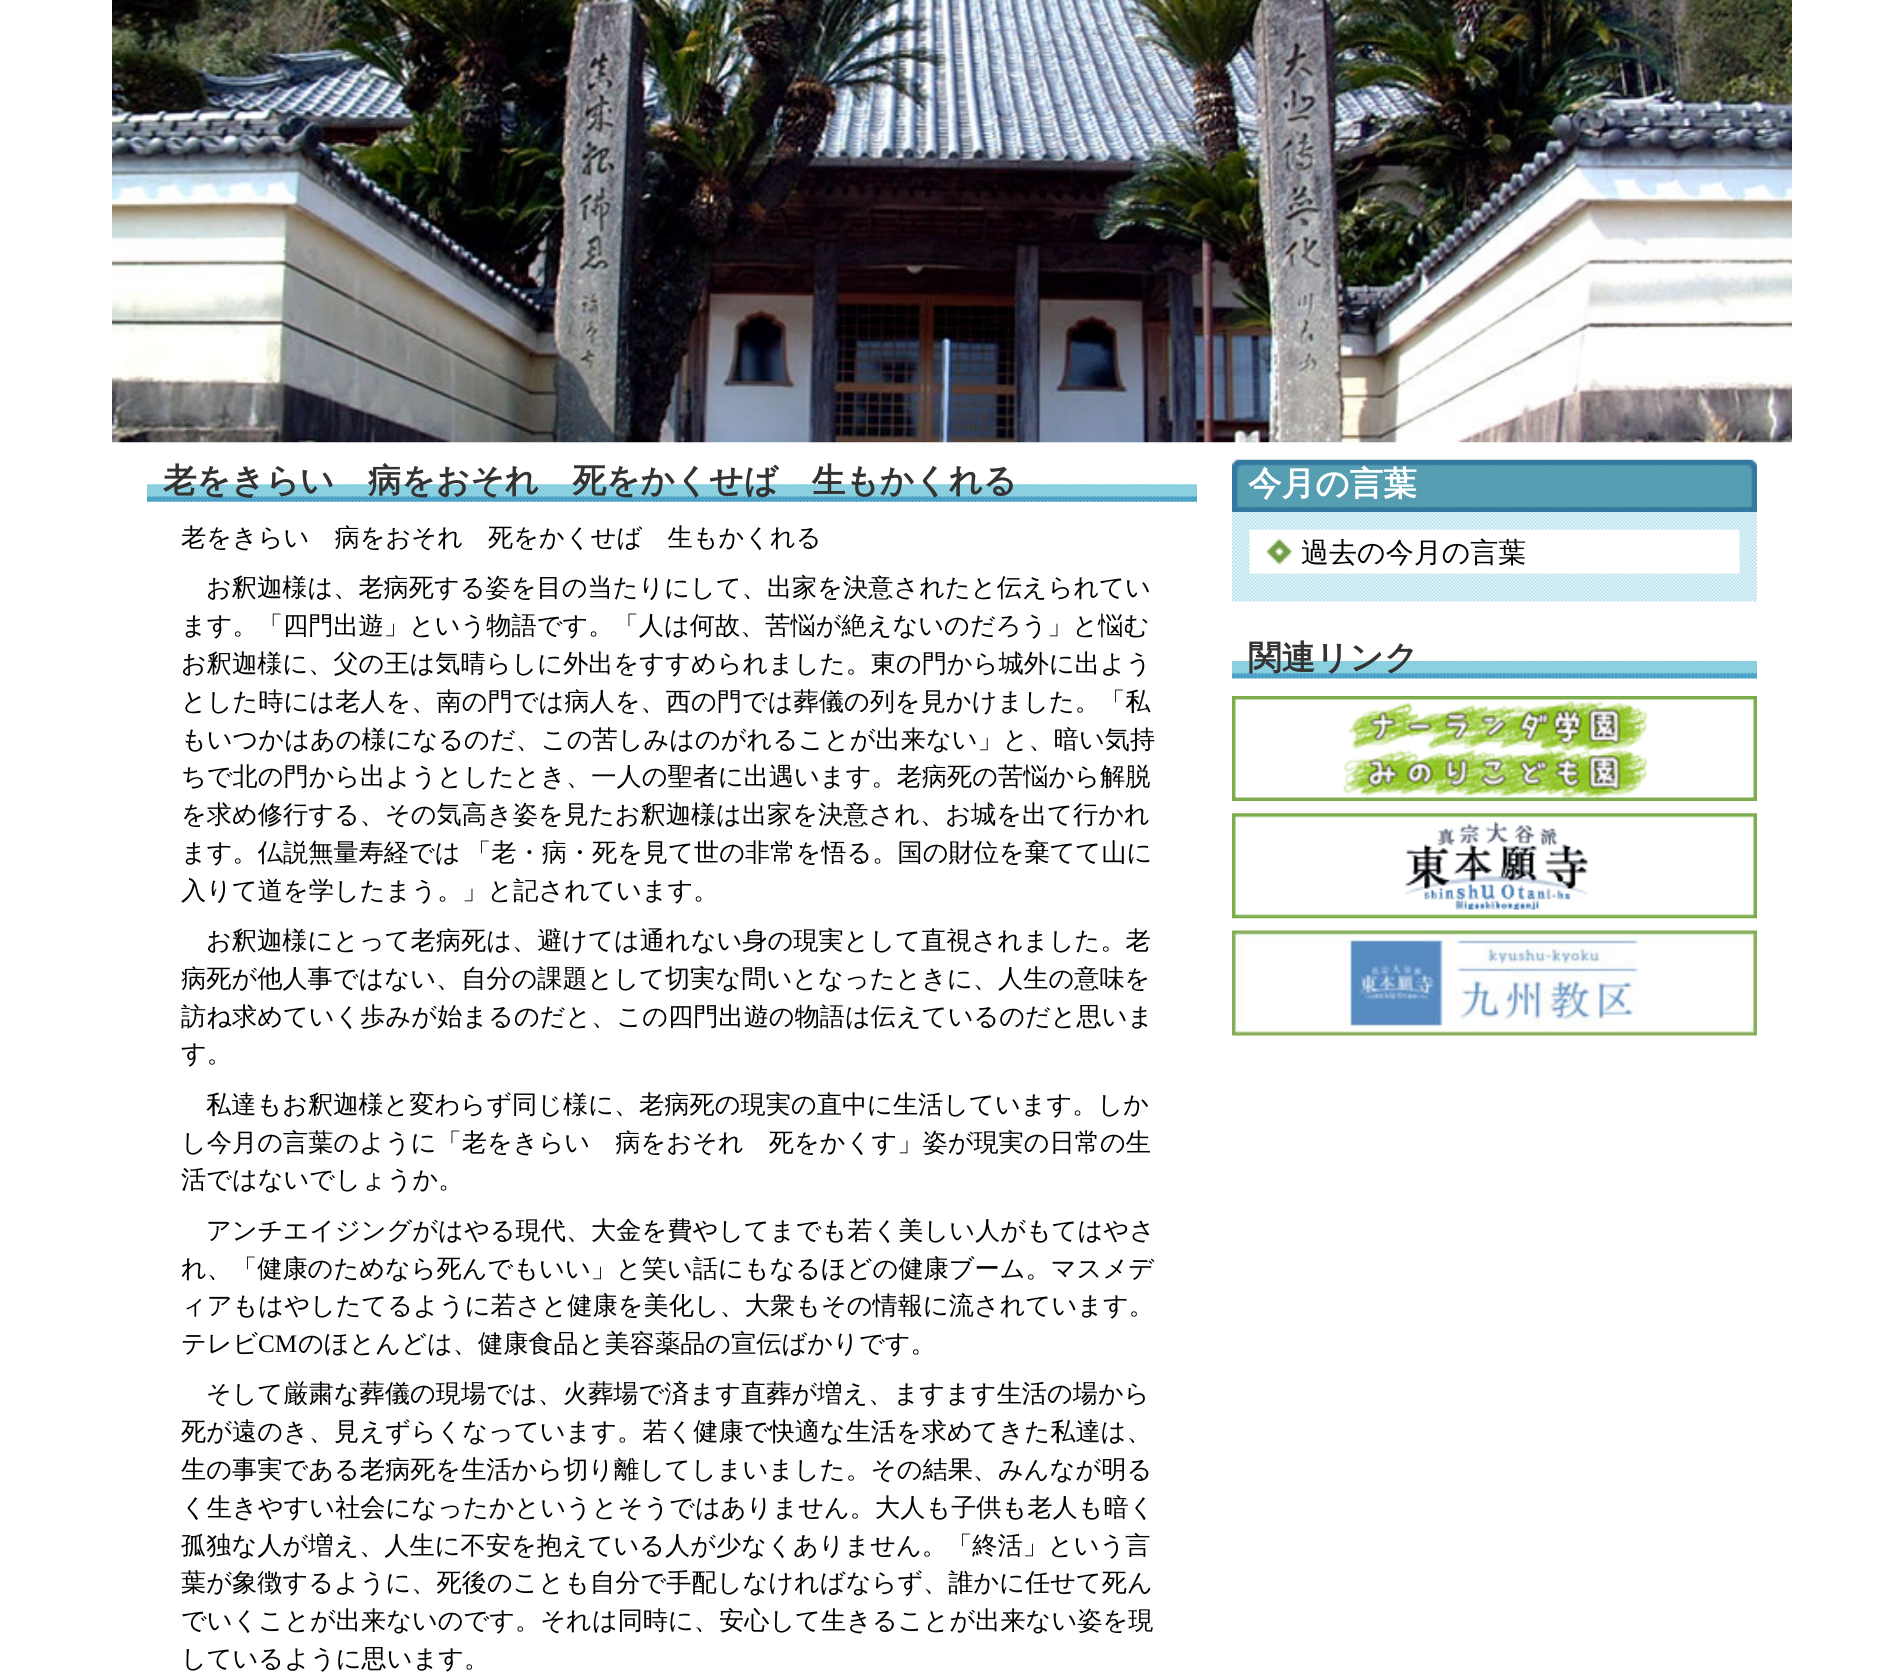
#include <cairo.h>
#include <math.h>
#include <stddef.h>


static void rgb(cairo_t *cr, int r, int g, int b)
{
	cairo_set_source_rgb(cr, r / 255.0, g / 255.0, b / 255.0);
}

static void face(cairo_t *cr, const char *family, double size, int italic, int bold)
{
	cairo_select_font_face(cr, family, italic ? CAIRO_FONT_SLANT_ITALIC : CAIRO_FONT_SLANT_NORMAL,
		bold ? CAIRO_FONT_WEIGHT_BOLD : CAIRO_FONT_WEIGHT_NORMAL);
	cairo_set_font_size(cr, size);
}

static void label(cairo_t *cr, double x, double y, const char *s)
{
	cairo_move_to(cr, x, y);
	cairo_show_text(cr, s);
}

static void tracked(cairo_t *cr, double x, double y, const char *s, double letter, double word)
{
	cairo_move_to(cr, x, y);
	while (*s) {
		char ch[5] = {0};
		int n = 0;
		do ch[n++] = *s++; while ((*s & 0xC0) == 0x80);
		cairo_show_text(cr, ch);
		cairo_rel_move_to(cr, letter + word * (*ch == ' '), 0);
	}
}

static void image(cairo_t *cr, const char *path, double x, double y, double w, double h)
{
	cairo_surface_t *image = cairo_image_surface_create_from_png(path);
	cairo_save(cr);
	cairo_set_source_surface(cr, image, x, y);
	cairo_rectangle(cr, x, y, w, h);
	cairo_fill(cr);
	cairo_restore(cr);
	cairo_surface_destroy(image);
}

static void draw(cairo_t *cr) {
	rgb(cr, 255, 255, 255);
	cairo_paint(cr);
	image(cr, "image0.png", 112, 0, 1680, 443);
	image(cr, "image1.png", 147, 484, 1050, 18);
	face(cr, "WenQuanYi Zen Hei", 33.6, 0, 1);
	rgb(cr, 51, 51, 51);
	label(cr, 163, 492, "老をきらい　病をおそれ　死をかくせば　生もかくれる");
	face(cr, "WenQuanYi Zen Hei Medium", 25.2, 0, 0);
	rgb(cr, 0, 0, 0);
	label(cr, 181, 546, "老をきらい　病をおそれ　死をかくせば　生もかくれる");
	label(cr, 206, 596, "お釈迦様は、老病死する姿を目の当たりにして、出家を決意されたと伝えられてい");
	label(cr, 181, 634, "ます。「四門出遊」という物語です。「人は何故、苦悩が絶えないのだろう」と悩む");
	label(cr, 181, 672, "お釈迦様に、父の王は気晴らしに外出をすすめられました。東の門から城外に出よう");
	label(cr, 181, 710, "とした時には老人を、南の門では病人を、西の門では葬儀の列を見かけました。「私");
	label(cr, 181, 748, "もいつかはあの様になるのだ、この苦しみはのがれることが出来ない」と、暗い気持");
	label(cr, 181, 785, "ちで北の門から出ようとしたとき、一人の聖者に出遇います。老病死の苦悩から解脱");
	label(cr, 181, 823, "を求め修行する、その気高き姿を見たお釈迦様は出家を決意され、お城を出て行かれ");
	tracked(cr, 181, 861, "ます。仏説無量寿経では 「老・病・死を見て世の非常を悟る。国の財位を棄てて山に", 0, -2);
	label(cr, 181, 899, "入りて道を学したまう。」と記されています。");
	label(cr, 206, 949, "お釈迦様にとって老病死は、避けては通れない身の現実として直視されました。老");
	label(cr, 181, 987, "病死が他人事ではない、自分の課題として切実な問いとなったときに、人生の意味を");
	label(cr, 181, 1025, "訪ね求めていく歩みが始まるのだと、この四門出遊の物語は伝えているのだと思いま");
	label(cr, 181, 1062, "す。");
	label(cr, 206, 1113, "私達もお釈迦様と変わらず同じ様に、老病死の現実の直中に生活しています。しか");
	label(cr, 181, 1151, "し今月の言葉のように「老をきらい　病をおそれ　死をかくす」姿が現実の日常の生");
	label(cr, 181, 1188, "活ではないでしょうか。");
	label(cr, 206, 1239, "アンチエイジングがはやる現代、大金を費やしてまでも若く美しい人がもてはやさ");
	label(cr, 181, 1277, "れ、「健康のためなら死んでもいい」と笑い話にもなるほどの健康ブーム。マスメデ");
	label(cr, 181, 1314, "ィアもはやしたてるように若さと健康を美化し、大衆もその情報に流されています。");
	label(cr, 181, 1352, "テレビ");
	face(cr, "Liberation Serif", 25.2, 0, 0);
	label(cr, 258, 1352, "CM");
	face(cr, "WenQuanYi Zen Hei Medium", 25.2, 0, 0);
	label(cr, 298, 1352, "のほとんどは、健康食品と美容薬品の宣伝ばかりです。");
	label(cr, 206, 1402, "そして厳粛な葬儀の現場では、火葬場で済ます直葬が増え、ますます生活の場から");
	label(cr, 181, 1440, "死が遠のき、見えずらくなっています。若く健康で快適な生活を求めてきた私達は、");
	label(cr, 181, 1478, "生の事実である老病死を生活から切り離してしまいました。その結果、みんなが明る");
	label(cr, 181, 1516, "く生きやすい社会になったかというとそうではありません。大人も子供も老人も暗く");
	label(cr, 181, 1554, "孤独な人が増え、人生に不安を抱えている人が少なくありません。「終活」という言");
	label(cr, 181, 1591, "葉が象徴するように、死後のことも自分で手配しなければならず、誰かに任せて死ん");
	label(cr, 181, 1629, "でいくことが出来ないのです。それは同時に、安心して生きることが出来ない姿を現");
	label(cr, 181, 1667, "しているように思います。");
	image(cr, "image2.png", 1232, 459, 525, 54);
	face(cr, "WenQuanYi Zen Hei", 33.6, 0, 1);
	rgb(cr, 255, 255, 255);
	label(cr, 1248, 495, "今月の言葉");
	image(cr, "image3.png", 1232, 512, 525, 90);
	image(cr, "image4.png", 1249, 529, 491, 45);
	face(cr, "WenQuanYi Zen Hei Medium", 28, 0, 0);
	rgb(cr, 0, 0, 0);
	label(cr, 1301, 562, "過去の今月の言葉");
	image(cr, "image5.png", 1232, 661, 525, 18);
	face(cr, "WenQuanYi Zen Hei", 33.6, 0, 1);
	rgb(cr, 51, 51, 51);
	label(cr, 1248, 669, "関連リンク");
	image(cr, "image6.png", 1232, 696, 525, 105);
	image(cr, "image7.png", 1232, 813, 525, 106);
	image(cr, "image8.png", 1232, 930, 525, 106);
}

int main(void) {
	cairo_surface_t *surface = cairo_image_surface_create(CAIRO_FORMAT_RGB24, 1902, 1673);
	cairo_t *cr = cairo_create(surface);
	cairo_font_options_t *options = cairo_font_options_create();
	cairo_font_options_set_hint_metrics(options, CAIRO_HINT_METRICS_OFF);
	cairo_font_options_set_hint_style(options, CAIRO_HINT_STYLE_NONE);
	cairo_set_font_options(cr, options);
	cairo_set_miter_limit(cr, 4);
	draw(cr);
	cairo_surface_write_to_png(surface, "render.png");
	cairo_font_options_destroy(options);
	cairo_destroy(cr);
	cairo_surface_destroy(surface);
	return 0;
}
